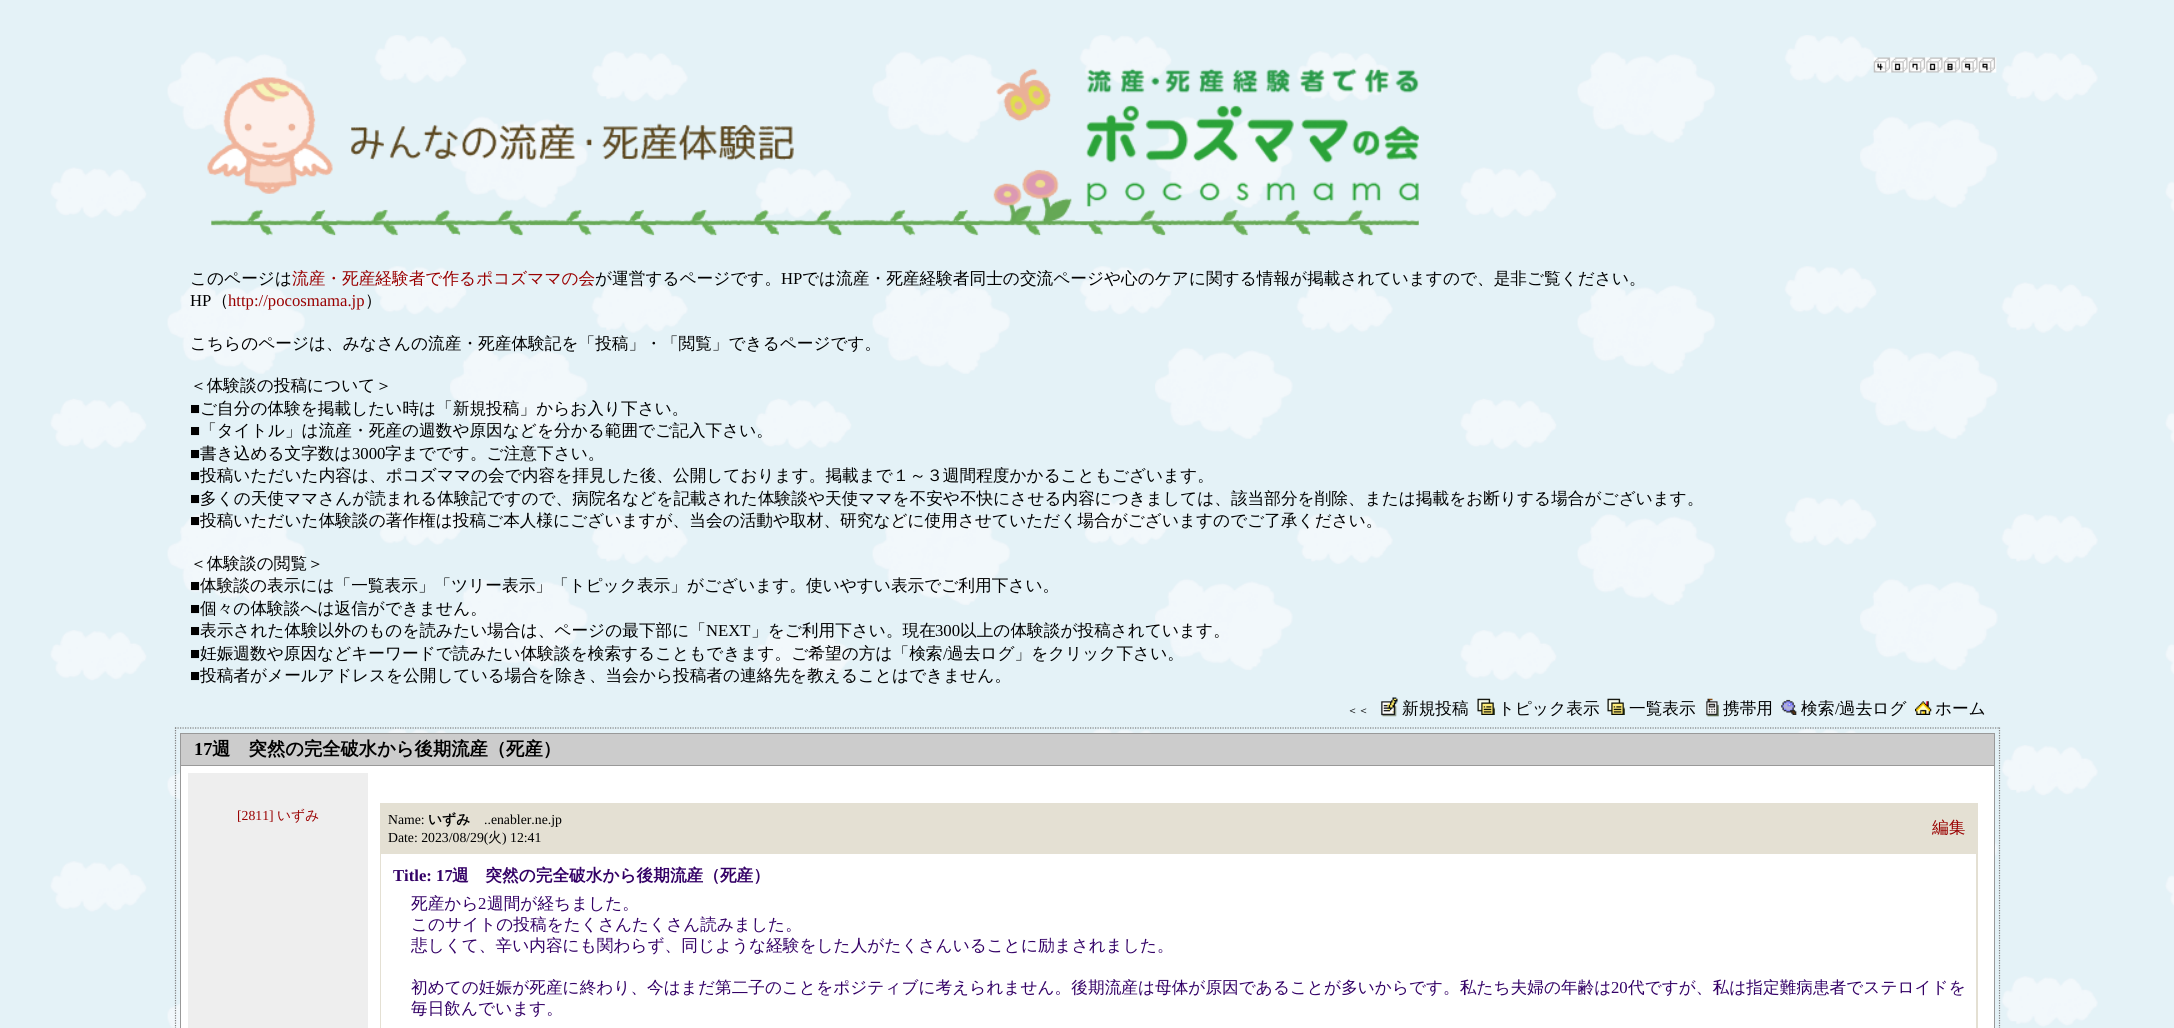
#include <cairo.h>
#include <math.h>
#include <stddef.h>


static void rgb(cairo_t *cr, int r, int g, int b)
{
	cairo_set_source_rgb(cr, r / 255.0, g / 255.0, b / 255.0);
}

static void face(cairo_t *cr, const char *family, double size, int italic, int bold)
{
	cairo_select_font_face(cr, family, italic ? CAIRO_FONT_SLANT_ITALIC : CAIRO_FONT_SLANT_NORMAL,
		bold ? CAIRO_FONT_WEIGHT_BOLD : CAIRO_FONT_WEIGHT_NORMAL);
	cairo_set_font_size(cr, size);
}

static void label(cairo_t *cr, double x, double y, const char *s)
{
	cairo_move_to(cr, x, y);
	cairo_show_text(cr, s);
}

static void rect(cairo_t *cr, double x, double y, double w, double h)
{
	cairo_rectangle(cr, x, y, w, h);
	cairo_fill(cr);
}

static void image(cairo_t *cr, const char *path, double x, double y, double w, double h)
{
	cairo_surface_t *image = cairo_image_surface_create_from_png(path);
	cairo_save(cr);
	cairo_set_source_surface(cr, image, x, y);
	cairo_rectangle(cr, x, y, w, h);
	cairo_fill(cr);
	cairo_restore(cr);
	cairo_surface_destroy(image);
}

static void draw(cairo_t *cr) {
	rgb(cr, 255, 255, 255);
	cairo_paint(cr);
	image(cr, "image0.png", 0, 0, 2174, 1028);
	image(cr, "image1.png", 1873, 57, 124, 16);
	image(cr, "image2.png", 207, 68, 1212, 168);
	face(cr, "WenQuanYi Zen Hei Medium", 16.67, 0, 0);
	rgb(cr, 0, 0, 0);
	label(cr, 190, 284, "このページは");
	rgb(cr, 153, 0, 0);
	label(cr, 292, 284, "流産・死産経験者で作るポコズママの会");
	rgb(cr, 0, 0, 0);
	label(cr, 595, 284, "が運営するページです。");
	face(cr, "Liberation Serif", 16.67, 0, 0);
	label(cr, 781, 284, "HP");
	face(cr, "WenQuanYi Zen Hei Medium", 16.67, 0, 0);
	label(cr, 802, 284, "では流産・死産経験者同士の交流ページや心のケアに関する情報が掲載されていますので、是非ご覧ください。");
	face(cr, "Liberation Serif", 16.67, 0, 0);
	label(cr, 190, 306, "HP");
	face(cr, "WenQuanYi Zen Hei Medium", 16.67, 0, 0);
	label(cr, 212, 306, "（");
	face(cr, "Liberation Serif", 16.67, 0, 0);
	rgb(cr, 153, 0, 0);
	label(cr, 228, 306, "http://pocosmama.jp");
	face(cr, "WenQuanYi Zen Hei Medium", 16.67, 0, 0);
	rgb(cr, 0, 0, 0);
	label(cr, 365, 306, "）");
	label(cr, 190, 349, "こちらのページは、みなさんの流産・死産体験記を「投稿」・「閲覧」できるページです。");
	label(cr, 190, 391, "＜体験談の投稿について＞");
	face(cr, "Liberation Serif", 16.67, 0, 0);
	label(cr, 190, 414, "■");
	face(cr, "WenQuanYi Zen Hei Medium", 16.67, 0, 0);
	label(cr, 200, 414, "ご自分の体験を掲載したい時は「新規投稿」からお入り下さい。");
	face(cr, "Liberation Serif", 16.67, 0, 0);
	label(cr, 190, 436, "■");
	face(cr, "WenQuanYi Zen Hei Medium", 16.67, 0, 0);
	label(cr, 200, 436, "「タイトル」は流産・死産の週数や原因などを分かる範囲でご記入下さい。");
	face(cr, "Liberation Serif", 16.67, 0, 0);
	label(cr, 190, 459, "■");
	face(cr, "WenQuanYi Zen Hei Medium", 16.67, 0, 0);
	label(cr, 200, 459, "書き込める文字数は");
	face(cr, "Liberation Serif", 16.67, 0, 0);
	label(cr, 352, 459, "3000");
	face(cr, "WenQuanYi Zen Hei Medium", 16.67, 0, 0);
	label(cr, 385, 459, "字までです。ご注意下さい。");
	face(cr, "Liberation Serif", 16.67, 0, 0);
	label(cr, 190, 481, "■");
	face(cr, "WenQuanYi Zen Hei Medium", 16.67, 0, 0);
	label(cr, 200, 481, "投稿いただいた内容は、ポコズママの会で内容を拝見した後、公開しております。掲載まで１～３週間程度かかることもございます。");
	face(cr, "Liberation Serif", 16.67, 0, 0);
	label(cr, 190, 504, "■");
	face(cr, "WenQuanYi Zen Hei Medium", 16.67, 0, 0);
	label(cr, 200, 504, "多くの天使ママさんが読まれる体験記ですので、病院名などを記載された体験談や天使ママを不安や不快にさせる内容につきましては、該当部分を削除、または掲載をお断りする場合がございます。");
	face(cr, "Liberation Serif", 16.67, 0, 0);
	label(cr, 190, 526, "■");
	face(cr, "WenQuanYi Zen Hei Medium", 16.67, 0, 0);
	label(cr, 200, 526, "投稿いただいた体験談の著作権は投稿ご本人様にございますが、当会の活動や取材、研究などに使用させていただく場合がございますのでご了承ください。");
	label(cr, 190, 569, "＜体験談の閲覧＞");
	face(cr, "Liberation Serif", 16.67, 0, 0);
	label(cr, 190, 591, "■");
	face(cr, "WenQuanYi Zen Hei Medium", 16.67, 0, 0);
	label(cr, 200, 591, "体験談の表示には「一覧表示」「ツリー表示」「トピック表示」がございます。使いやすい表示でご利用下さい。");
	face(cr, "Liberation Serif", 16.67, 0, 0);
	label(cr, 190, 614, "■");
	face(cr, "WenQuanYi Zen Hei Medium", 16.67, 0, 0);
	label(cr, 200, 614, "個々の体験談へは返信ができません。");
	face(cr, "Liberation Serif", 16.67, 0, 0);
	label(cr, 190, 636, "■");
	face(cr, "WenQuanYi Zen Hei Medium", 16.67, 0, 0);
	label(cr, 200, 636, "表示された体験以外のものを読みたい場合は、ページの最下部に「");
	face(cr, "Liberation Serif", 16.67, 0, 0);
	label(cr, 706, 636, "NEXT");
	face(cr, "WenQuanYi Zen Hei Medium", 16.67, 0, 0);
	label(cr, 751, 636, "」をご利用下さい。現在");
	face(cr, "Liberation Serif", 16.67, 0, 0);
	label(cr, 935, 636, "300");
	face(cr, "WenQuanYi Zen Hei Medium", 16.67, 0, 0);
	label(cr, 960, 636, "以上の体験談が投稿されています。");
	face(cr, "Liberation Serif", 16.67, 0, 0);
	label(cr, 190, 659, "■");
	face(cr, "WenQuanYi Zen Hei Medium", 16.67, 0, 0);
	label(cr, 200, 659, "妊娠週数や原因などキーワードで読みたい体験談を検索することもできます。ご希望の方は「検索");
	face(cr, "Liberation Serif", 16.67, 0, 0);
	label(cr, 943, 659, "/");
	face(cr, "WenQuanYi Zen Hei Medium", 16.67, 0, 0);
	label(cr, 947, 659, "過去ログ」をクリック下さい。");
	face(cr, "Liberation Serif", 16.67, 0, 0);
	label(cr, 190, 681, "■");
	face(cr, "WenQuanYi Zen Hei Medium", 16.67, 0, 0);
	label(cr, 200, 681, "投稿者がメールアドレスを公開している場合を除き、当会から投稿者の連絡先を教えることはできません。");
	face(cr, "WenQuanYi Zen Hei Medium", 11, 0, 0);
	label(cr, 1347, 714, "＜＜");
	image(cr, "image3.png", 1381, 697, 17, 20);
	face(cr, "WenQuanYi Zen Hei Medium", 16.67, 0, 0);
	label(cr, 1402, 714, "新規投稿");
	image(cr, "image4.png", 1477, 698, 18, 17);
	label(cr, 1498, 714, "トピック表示");
	image(cr, "image5.png", 1607, 698, 18, 17);
	label(cr, 1629, 714, "一覧表示");
	image(cr, "image6.png", 1706, 698, 13, 19);
	label(cr, 1723, 714, "携帯用");
	image(cr, "image7.png", 1781, 699, 16, 16);
	label(cr, 1801, 714, "検索");
	face(cr, "Liberation Serif", 16.67, 0, 0);
	label(cr, 1835, 714, "/");
	face(cr, "WenQuanYi Zen Hei Medium", 16.67, 0, 0);
	label(cr, 1839, 714, "過去ログ");
	image(cr, "image8.png", 1915, 701, 17, 14);
	label(cr, 1935, 714, "ホーム");
	cairo_new_path(cr);
	cairo_move_to(cr, 175, 728);
	cairo_line_to(cr, 2000, 728);
	rgb(cr, 128, 128, 128);
	cairo_set_line_width(cr, 1.2);
	cairo_set_dash(cr, (double[]){1.25, 1.25}, 2, 0);
	cairo_stroke(cr);
	cairo_new_path(cr);
	cairo_move_to(cr, 1999.5, 727.5);
	cairo_line_to(cr, 1999.5, 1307.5);
	cairo_stroke(cr);
	cairo_new_path(cr);
	cairo_move_to(cr, 175.5, 727.5);
	cairo_line_to(cr, 175.5, 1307.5);
	cairo_stroke(cr);
	rgb(cr, 153, 153, 153);
	rect(cr, 180, 733, 1815, 295);
	rgb(cr, 204, 204, 204);
	rect(cr, 181, 734, 1813, 31);
	face(cr, "Liberation Serif", 18.3, 0, 1);
	rgb(cr, 0, 0, 0);
	label(cr, 194, 755, "17");
	face(cr, "WenQuanYi Zen Hei", 18.3, 0, 1);
	label(cr, 212, 755, "週　突然の完全破水から後期流産（死産）");
	rgb(cr, 255, 255, 255);
	rect(cr, 181, 766, 1813, 262);
	rgb(cr, 238, 238, 238);
	rect(cr, 188, 773, 180, 255);
	face(cr, "Liberation Serif", 13.75, 0, 0);
	rgb(cr, 153, 0, 0);
	label(cr, 237, 820, "[2811]");
	face(cr, "WenQuanYi Zen Hei Medium", 13.75, 0, 0);
	label(cr, 277, 820, "いずみ");
	rgb(cr, 228, 224, 211);
	rect(cr, 380, 803, 1598, 225);
	face(cr, "Liberation Serif", 13.75, 0, 0);
	rgb(cr, 0, 0, 0);
	label(cr, 388, 824, "Name:");
	face(cr, "WenQuanYi Zen Hei", 13.75, 0, 1);
	label(cr, 428, 824, "いずみ");
	face(cr, "Liberation Serif", 13.75, 0, 0);
	label(cr, 484, 824, "..enabler.ne.jp");
	label(cr, 388, 842, "Date: 2023/08/29(");
	face(cr, "WenQuanYi Zen Hei Medium", 13.75, 0, 0);
	label(cr, 488, 842, "火");
	face(cr, "Liberation Serif", 13.75, 0, 0);
	label(cr, 502, 842, ") 12:41");
	face(cr, "WenQuanYi Zen Hei Medium", 16.67, 0, 0);
	rgb(cr, 153, 0, 0);
	label(cr, 1932, 833, "編集");
	rgb(cr, 255, 255, 255);
	rect(cr, 381, 854, 1595, 174);
	face(cr, "Liberation Serif", 16.67, 0, 1);
	rgb(cr, 51, 0, 102);
	label(cr, 393, 881, "Title: 17");
	face(cr, "WenQuanYi Zen Hei", 16.67, 0, 1);
	label(cr, 452, 881, "週　突然の完全破水から後期流産（死産）");
	face(cr, "WenQuanYi Zen Hei Medium", 16.67, 0, 0);
	label(cr, 411, 909, "死産から");
	face(cr, "Liberation Serif", 16.67, 0, 0);
	label(cr, 478, 909, "2");
	face(cr, "WenQuanYi Zen Hei Medium", 16.67, 0, 0);
	label(cr, 487, 909, "週間が経ちました。");
	label(cr, 411, 930, "このサイトの投稿をたくさんたくさん読みました。");
	label(cr, 411, 951, "悲しくて、辛い内容にも関わらず、同じような経験をした人がたくさんいることに励まされました。");
	label(cr, 411, 993, "初めての妊娠が死産に終わり、今はまだ第二子のことをポジティブに考えられません。後期流産は母体が原因であることが多いからです。私たち夫婦の年齢は");
	face(cr, "Liberation Serif", 16.67, 0, 0);
	label(cr, 1611, 993, "20");
	face(cr, "WenQuanYi Zen Hei Medium", 16.67, 0, 0);
	label(cr, 1628, 993, "代ですが、私は指定難病患者でステロイドを");
	label(cr, 411, 1014, "毎日飲んでいます。");
}

int main(void) {
	cairo_surface_t *surface = cairo_image_surface_create(CAIRO_FORMAT_RGB24, 2174, 1028);
	cairo_t *cr = cairo_create(surface);
	cairo_font_options_t *options = cairo_font_options_create();
	cairo_font_options_set_hint_metrics(options, CAIRO_HINT_METRICS_OFF);
	cairo_font_options_set_hint_style(options, CAIRO_HINT_STYLE_NONE);
	cairo_set_font_options(cr, options);
	cairo_set_miter_limit(cr, 4);
	draw(cr);
	cairo_surface_write_to_png(surface, "render.png");
	cairo_font_options_destroy(options);
	cairo_destroy(cr);
	cairo_surface_destroy(surface);
	return 0;
}
